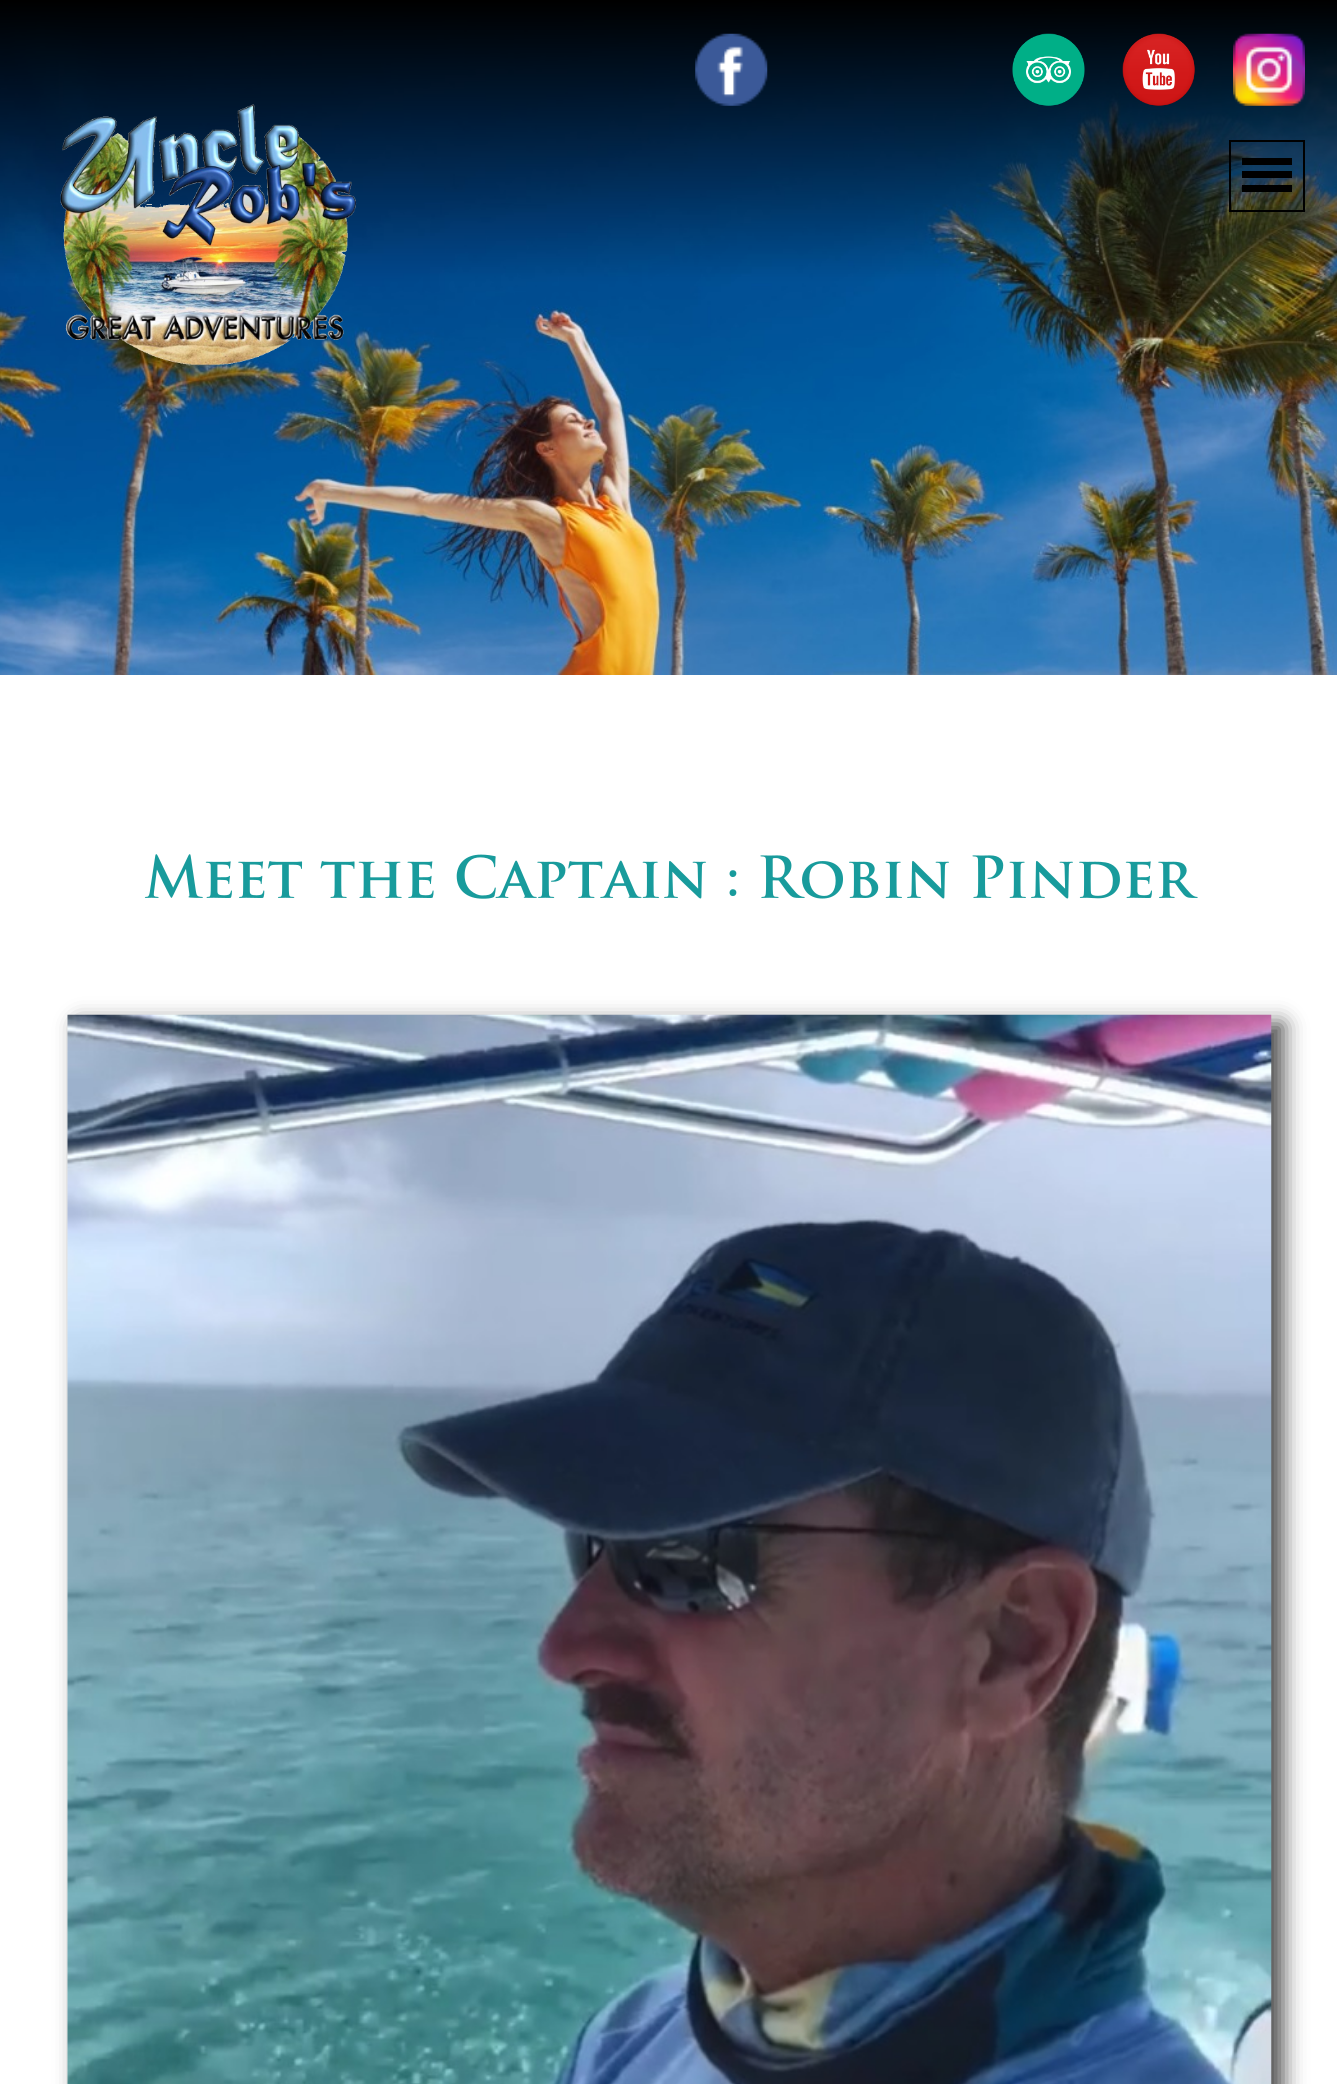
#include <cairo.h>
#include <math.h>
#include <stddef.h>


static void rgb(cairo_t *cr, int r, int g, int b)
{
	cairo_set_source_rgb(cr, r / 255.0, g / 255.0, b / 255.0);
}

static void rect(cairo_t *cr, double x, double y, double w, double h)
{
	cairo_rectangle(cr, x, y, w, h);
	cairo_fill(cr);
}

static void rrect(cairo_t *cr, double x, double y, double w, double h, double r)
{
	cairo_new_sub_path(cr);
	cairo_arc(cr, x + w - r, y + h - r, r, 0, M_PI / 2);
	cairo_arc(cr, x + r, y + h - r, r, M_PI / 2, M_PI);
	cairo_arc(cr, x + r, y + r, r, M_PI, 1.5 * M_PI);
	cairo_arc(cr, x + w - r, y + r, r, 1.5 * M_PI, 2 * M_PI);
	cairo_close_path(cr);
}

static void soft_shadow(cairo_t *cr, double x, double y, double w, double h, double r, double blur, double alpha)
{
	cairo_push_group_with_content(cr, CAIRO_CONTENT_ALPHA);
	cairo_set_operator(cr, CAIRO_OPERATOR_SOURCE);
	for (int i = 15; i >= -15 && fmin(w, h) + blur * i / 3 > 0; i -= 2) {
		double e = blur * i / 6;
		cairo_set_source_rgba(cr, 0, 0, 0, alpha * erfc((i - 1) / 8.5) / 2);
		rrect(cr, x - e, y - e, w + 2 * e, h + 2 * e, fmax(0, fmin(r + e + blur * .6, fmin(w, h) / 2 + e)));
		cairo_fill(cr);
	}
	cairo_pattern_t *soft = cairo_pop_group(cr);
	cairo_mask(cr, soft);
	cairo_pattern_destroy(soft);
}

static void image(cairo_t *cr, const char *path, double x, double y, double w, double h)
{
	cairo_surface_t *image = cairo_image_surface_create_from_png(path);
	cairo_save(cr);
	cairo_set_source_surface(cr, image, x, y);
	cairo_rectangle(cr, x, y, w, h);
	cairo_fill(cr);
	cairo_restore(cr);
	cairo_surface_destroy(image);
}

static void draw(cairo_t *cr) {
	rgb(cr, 255, 255, 255);
	cairo_paint(cr);
	image(cr, "image0.png", 0, 0, 1337, 675);
	image(cr, "image1.png", 695, 33, 73, 73);
	image(cr, "image2.png", 1012, 33, 73, 73);
	image(cr, "image3.png", 1122, 33, 73, 73);
	image(cr, "image4.png", 1233, 33, 72, 73);
	image(cr, "image5.png", 60, 104, 297, 262);
	cairo_rectangle(cr, 1230, 141, 74, 70);
	rgb(cr, 0, 0, 0);
	cairo_stroke(cr);
	rect(cr, 1242, 158, 50, 7);
	rect(cr, 1242, 171, 50, 7);
	rect(cr, 1242, 185, 50, 7);
	image(cr, "image6.png", 144, 854, 1054, 45);
	rgb(cr, 72, 72, 72);
	soft_shadow(cr, 79, 1024, 1204, 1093, 0, 11, 1);
	image(cr, "image7.png", 67, 1014, 1205, 1070);
}

int main(void) {
	cairo_surface_t *surface = cairo_image_surface_create(CAIRO_FORMAT_RGB24, 1337, 2084);
	cairo_t *cr = cairo_create(surface);
	cairo_font_options_t *options = cairo_font_options_create();
	cairo_font_options_set_hint_metrics(options, CAIRO_HINT_METRICS_OFF);
	cairo_font_options_set_hint_style(options, CAIRO_HINT_STYLE_NONE);
	cairo_set_font_options(cr, options);
	cairo_set_miter_limit(cr, 4);
	draw(cr);
	cairo_surface_write_to_png(surface, "render.png");
	cairo_font_options_destroy(options);
	cairo_destroy(cr);
	cairo_surface_destroy(surface);
	return 0;
}
